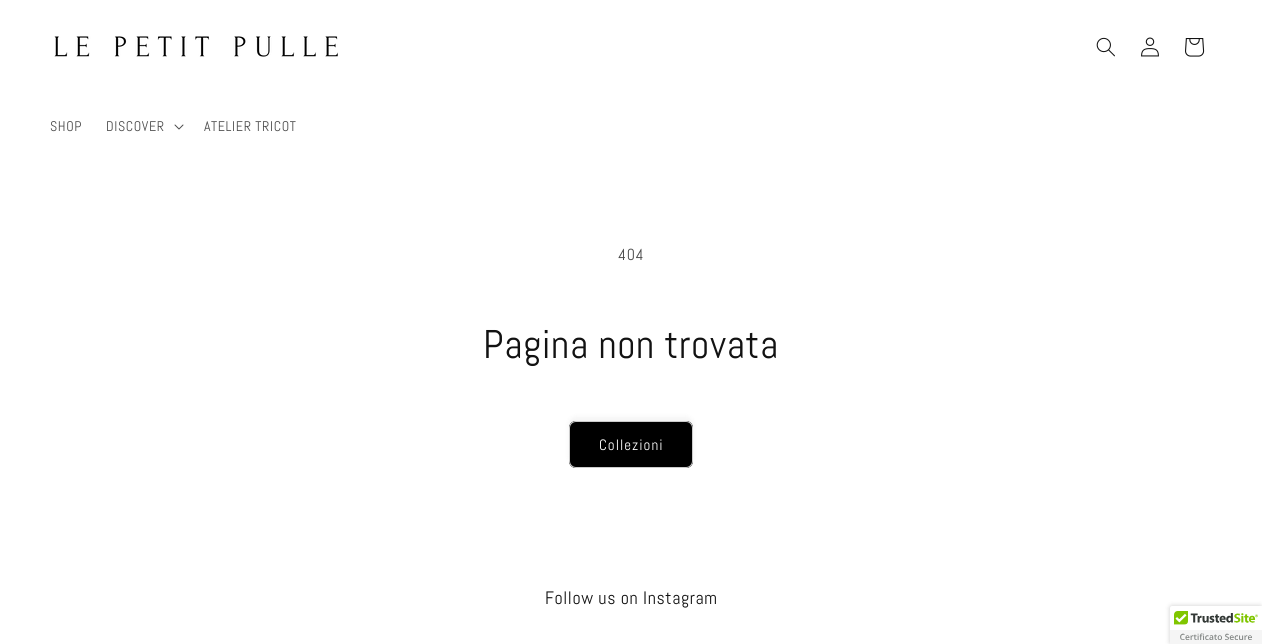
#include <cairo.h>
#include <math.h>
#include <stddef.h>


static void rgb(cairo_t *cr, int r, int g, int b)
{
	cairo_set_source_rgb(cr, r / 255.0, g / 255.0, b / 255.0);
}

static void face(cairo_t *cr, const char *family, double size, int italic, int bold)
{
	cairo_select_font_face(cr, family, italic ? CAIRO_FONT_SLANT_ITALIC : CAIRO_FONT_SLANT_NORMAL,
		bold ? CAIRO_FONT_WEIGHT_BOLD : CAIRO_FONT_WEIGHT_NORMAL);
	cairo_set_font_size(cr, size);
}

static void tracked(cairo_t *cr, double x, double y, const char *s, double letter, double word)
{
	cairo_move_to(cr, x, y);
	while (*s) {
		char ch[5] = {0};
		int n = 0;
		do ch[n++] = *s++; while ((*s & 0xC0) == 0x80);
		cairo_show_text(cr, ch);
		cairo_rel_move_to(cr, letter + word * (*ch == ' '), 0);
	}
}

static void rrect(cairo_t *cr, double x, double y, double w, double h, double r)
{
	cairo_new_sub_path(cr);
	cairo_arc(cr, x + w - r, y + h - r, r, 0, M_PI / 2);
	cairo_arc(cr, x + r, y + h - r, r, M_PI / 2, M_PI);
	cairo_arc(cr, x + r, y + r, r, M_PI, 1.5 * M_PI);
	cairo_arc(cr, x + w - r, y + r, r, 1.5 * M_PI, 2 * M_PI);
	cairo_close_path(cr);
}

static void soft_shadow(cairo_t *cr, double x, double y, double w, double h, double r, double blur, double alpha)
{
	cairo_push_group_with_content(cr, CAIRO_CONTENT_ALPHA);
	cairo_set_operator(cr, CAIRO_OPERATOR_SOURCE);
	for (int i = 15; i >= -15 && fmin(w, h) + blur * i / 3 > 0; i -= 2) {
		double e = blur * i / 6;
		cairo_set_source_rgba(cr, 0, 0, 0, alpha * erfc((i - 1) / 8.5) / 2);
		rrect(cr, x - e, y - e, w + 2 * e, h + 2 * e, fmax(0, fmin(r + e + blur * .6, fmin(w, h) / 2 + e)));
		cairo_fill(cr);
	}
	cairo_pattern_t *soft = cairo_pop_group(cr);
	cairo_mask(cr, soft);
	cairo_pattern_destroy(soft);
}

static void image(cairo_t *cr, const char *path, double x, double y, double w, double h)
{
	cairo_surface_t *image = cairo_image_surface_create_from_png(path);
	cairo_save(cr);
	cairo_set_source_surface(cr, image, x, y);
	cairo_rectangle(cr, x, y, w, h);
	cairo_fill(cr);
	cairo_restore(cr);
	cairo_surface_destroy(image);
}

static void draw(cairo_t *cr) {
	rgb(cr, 255, 255, 255);
	cairo_paint(cr);
	image(cr, "image0.png", 54, 36, 284, 21);
	image(cr, "image1.png", 1096, 37, 19, 20);
	image(cr, "image2.png", 1141, 37, 18, 20);
	image(cr, "image3.png", 1185, 38, 20, 19);
	face(cr, "Abel", 14, 0, 0);
	rgb(cr, 77, 77, 77);
	tracked(cr, 50, 131, "SHOP", 0.6, 0);
	tracked(cr, 106, 131, "DISCOVER", 0.6, 0);
	image(cr, "image4.png", 174, 124, 10, 6);
	tracked(cr, 204, 131, "ATELIER TRICOT", 0.6, 0);
	face(cr, "Abel", 16, 0, 0);
	tracked(cr, 618, 260, "404", 0.6, 0);
	face(cr, "Abel", 40, 0, 0);
	rgb(cr, 18, 18, 18);
	tracked(cr, 483, 358, "Pagina non trovata", 0.6, 0);
	rgb(cr, 18, 18, 18);
	soft_shadow(cr, 569, 417, 124, 47, 7, 2.5, 0.05);
	rgb(cr, 0, 0, 0);
	rrect(cr, 569, 421, 124, 47, 7);
	cairo_fill(cr);
	rrect(cr, 569.5, 421.5, 123, 46, 6.5);
	cairo_set_line_width(cr, 1);
	cairo_stroke(cr);
	rrect(cr, 569.5, 421.5, 123, 46, 6.5);
	cairo_set_source_rgba(cr, 1, 1, 1, 0.8);
	cairo_stroke(cr);
	face(cr, "Abel", 15, 0, 0);
	rgb(cr, 255, 255, 255);
	tracked(cr, 599, 450, "Collezioni", 1, 0);
	face(cr, "Abel", 18, 0, 0);
	rgb(cr, 18, 18, 18);
	tracked(cr, 545, 604, "Follow us on Instagram", 0.6, 0);
	rgb(cr, 0, 0, 0);
	soft_shadow(cr, 1170, 606, 92, 38, 2, 2.5, 0.2);
	rgb(cr, 255, 255, 255);
	cairo_new_path(cr);
	cairo_move_to(cr, 1172, 606);
	cairo_line_to(cr, 1262, 606);
	cairo_line_to(cr, 1262, 644);
	cairo_line_to(cr, 1170, 644);
	cairo_line_to(cr, 1170, 608);
	cairo_curve_to(cr, 1170, 607, 1171, 606, 1172, 606);
	cairo_close_path(cr);
	cairo_fill(cr);
	image(cr, "image5.png", 1170, 611, 92, 33);
}

int main(void) {
	cairo_surface_t *surface = cairo_image_surface_create(CAIRO_FORMAT_RGB24, 1262, 644);
	cairo_t *cr = cairo_create(surface);
	cairo_font_options_t *options = cairo_font_options_create();
	cairo_font_options_set_hint_metrics(options, CAIRO_HINT_METRICS_OFF);
	cairo_font_options_set_hint_style(options, CAIRO_HINT_STYLE_NONE);
	cairo_set_font_options(cr, options);
	cairo_set_miter_limit(cr, 4);
	draw(cr);
	cairo_surface_write_to_png(surface, "render.png");
	cairo_font_options_destroy(options);
	cairo_destroy(cr);
	cairo_surface_destroy(surface);
	return 0;
}
